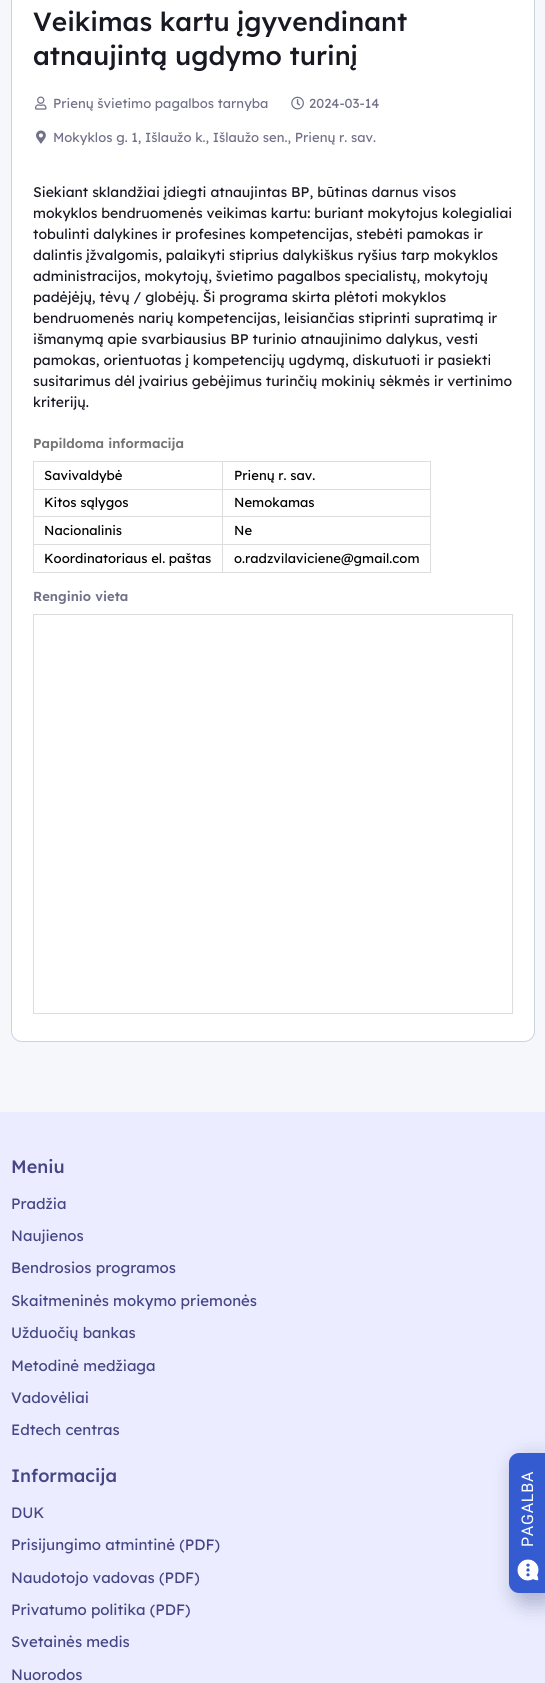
#include <cairo.h>
#include <math.h>
#include <stddef.h>


static void rgb(cairo_t *cr, int r, int g, int b)
{
	cairo_set_source_rgb(cr, r / 255.0, g / 255.0, b / 255.0);
}

static void face(cairo_t *cr, const char *family, double size, int italic, int bold)
{
	cairo_select_font_face(cr, family, italic ? CAIRO_FONT_SLANT_ITALIC : CAIRO_FONT_SLANT_NORMAL,
		bold ? CAIRO_FONT_WEIGHT_BOLD : CAIRO_FONT_WEIGHT_NORMAL);
	cairo_set_font_size(cr, size);
}

static void label(cairo_t *cr, double x, double y, const char *s)
{
	cairo_move_to(cr, x, y);
	cairo_show_text(cr, s);
}

static void tracked(cairo_t *cr, double x, double y, const char *s, double letter, double word)
{
	cairo_move_to(cr, x, y);
	while (*s) {
		char ch[5] = {0};
		int n = 0;
		do ch[n++] = *s++; while ((*s & 0xC0) == 0x80);
		cairo_show_text(cr, ch);
		cairo_rel_move_to(cr, letter + word * (*ch == ' '), 0);
	}
}

static void rect(cairo_t *cr, double x, double y, double w, double h)
{
	cairo_rectangle(cr, x, y, w, h);
	cairo_fill(cr);
}

static void rrect(cairo_t *cr, double x, double y, double w, double h, double r)
{
	cairo_new_sub_path(cr);
	cairo_arc(cr, x + w - r, y + h - r, r, 0, M_PI / 2);
	cairo_arc(cr, x + r, y + h - r, r, M_PI / 2, M_PI);
	cairo_arc(cr, x + r, y + r, r, M_PI, 1.5 * M_PI);
	cairo_arc(cr, x + w - r, y + r, r, 1.5 * M_PI, 2 * M_PI);
	cairo_close_path(cr);
}

static void soft_shadow(cairo_t *cr, double x, double y, double w, double h, double r, double blur, double alpha)
{
	cairo_push_group_with_content(cr, CAIRO_CONTENT_ALPHA);
	cairo_set_operator(cr, CAIRO_OPERATOR_SOURCE);
	for (int i = 15; i >= -15 && fmin(w, h) + blur * i / 3 > 0; i -= 2) {
		double e = blur * i / 6;
		cairo_set_source_rgba(cr, 0, 0, 0, alpha * erfc((i - 1) / 8.5) / 2);
		rrect(cr, x - e, y - e, w + 2 * e, h + 2 * e, fmax(0, fmin(r + e + blur * .6, fmin(w, h) / 2 + e)));
		cairo_fill(cr);
	}
	cairo_pattern_t *soft = cairo_pop_group(cr);
	cairo_mask(cr, soft);
	cairo_pattern_destroy(soft);
}

static void image(cairo_t *cr, const char *path, double x, double y, double w, double h)
{
	cairo_surface_t *image = cairo_image_surface_create_from_png(path);
	cairo_save(cr);
	cairo_set_source_surface(cr, image, x, y);
	cairo_rectangle(cr, x, y, w, h);
	cairo_fill(cr);
	cairo_restore(cr);
	cairo_surface_destroy(image);
}

static void draw(cairo_t *cr) {
	rgb(cr, 245, 247, 250);
	cairo_paint(cr);
	rgb(cr, 255, 255, 255);
	rrect(cr, 11.5, -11.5, 523, 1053, 10.5);
	cairo_fill_preserve(cr);
	rgb(cr, 203, 210, 225);
	cairo_set_line_width(cr, 1);
	cairo_stroke(cr);
	face(cr, "Lexend Medium", 26.25, 0, 0);
	rgb(cr, 25, 25, 36);
	label(cr, 33, 31, "Veikimas kartu įgyvendinant");
	label(cr, 33, 65, "atnaujintą ugdymo turinį");
	image(cr, "image0.png", 35, 96, 12, 14);
	face(cr, "Lexend", 13.1, 0, 0);
	rgb(cr, 113, 113, 137);
	label(cr, 53, 108, "Prienų švietimo pagalbos tarnyba");
	image(cr, "image1.png", 291, 96, 13, 14);
	label(cr, 309, 108, "2024-03-14");
	image(cr, "image2.png", 36, 130, 10, 14);
	label(cr, 53, 142, "Mokyklos g. 1, Išlaužo k., Išlaužo sen., Prienų r. sav.");
	face(cr, "Lexend", 14, 0, 0);
	rgb(cr, 25, 25, 36);
	label(cr, 33, 197, "Siekiant sklandžiai įdiegti atnaujintas BP, būtinas darnus visos");
	label(cr, 33, 218, "mokyklos bendruomenės veikimas kartu: buriant mokytojus kolegialiai");
	label(cr, 33, 239, "tobulinti dalykines ir profesines kompetencijas, stebėti pamokas ir");
	label(cr, 33, 260, "dalintis įžvalgomis, palaikyti stiprius dalykiškus ryšius tarp mokyklos");
	label(cr, 33, 281, "administracijos, mokytojų, švietimo pagalbos specialistų, mokytojų");
	label(cr, 33, 302, "padėjėjų, tėvų / globėjų. Ši programa skirta plėtoti mokyklos");
	label(cr, 33, 323, "bendruomenės narių kompetencijas, leisiančias stiprinti supratimą ir");
	label(cr, 33, 344, "išmanymą apie svarbiausius BP turinio atnaujinimo dalykus, vesti");
	label(cr, 33, 365, "pamokas, orientuotas į kompetencijų ugdymą, diskutuoti ir pasiekti");
	label(cr, 33, 386, "susitarimus dėl įvairius gebėjimus turinčių mokinių sėkmės ir vertinimo");
	label(cr, 33, 407, "kriterijų.");
	face(cr, "Lexend SemiBold", 13.1, 0, 0);
	rgb(cr, 117, 117, 117);
	label(cr, 33, 448, "Papildoma informacija");
	rgb(cr, 221, 221, 221);
	rect(cr, 33, 461, 398, 1);
	face(cr, "Lexend", 13.1, 0, 0);
	rgb(cr, 0, 0, 0);
	label(cr, 44, 480, "Savivaldybė");
	label(cr, 234, 480, "Prienų r. sav.");
	rgb(cr, 221, 221, 221);
	rect(cr, 33, 489, 398, 1);
	rgb(cr, 0, 0, 0);
	label(cr, 44, 507, "Kitos sąlygos");
	label(cr, 234, 507, "Nemokamas");
	rgb(cr, 221, 221, 221);
	rect(cr, 33, 516, 398, 1);
	rgb(cr, 0, 0, 0);
	label(cr, 44, 535, "Nacionalinis");
	label(cr, 234, 535, "Ne");
	rgb(cr, 221, 221, 221);
	rect(cr, 33, 544, 398, 1);
	rect(cr, 33, 572, 398, 1);
	rect(cr, 33, 461, 1, 112);
	rgb(cr, 0, 0, 0);
	label(cr, 44, 563, "Koordinatoriaus el. paštas");
	rgb(cr, 221, 221, 221);
	rect(cr, 430, 461, 1, 112);
	rect(cr, 222, 461, 1, 112);
	rgb(cr, 0, 0, 0);
	label(cr, 234, 563, "o.radzvilaviciene@gmail.com");
	face(cr, "Lexend SemiBold", 13.1, 0, 0);
	rgb(cr, 113, 113, 137);
	label(cr, 33, 601, "Renginio vieta");
	cairo_rectangle(cr, 33.5, 614.5, 479, 399);
	rgb(cr, 221, 221, 221);
	cairo_stroke(cr);
	rgb(cr, 235, 236, 255);
	rect(cr, 0, 1112, 545, 571);
	face(cr, "Lexend Medium", 18, 0, 0);
	rgb(cr, 70, 70, 134);
	label(cr, 11, 1173, "Meniu");
	face(cr, "Lexend", 15, 0, 0);
	label(cr, 11, 1209, "Pradžia");
	label(cr, 11, 1241, "Naujienos");
	label(cr, 11, 1273, "Bendrosios programos");
	label(cr, 11, 1306, "Skaitmeninės mokymo priemonės");
	label(cr, 11, 1338, "Užduočių bankas");
	label(cr, 11, 1371, "Metodinė medžiaga");
	label(cr, 11, 1403, "Vadovėliai");
	label(cr, 11, 1435, "Edtech centras");
	face(cr, "Lexend Medium", 18, 0, 0);
	label(cr, 11, 1482, "Informacija");
	face(cr, "Lexend", 15, 0, 0);
	label(cr, 11, 1518, "DUK");
	label(cr, 11, 1550, "Prisijungimo atmintinė (PDF)");
	label(cr, 11, 1583, "Naudotojo vadovas (PDF)");
	label(cr, 11, 1615, "Privatumo politika (PDF)");
	label(cr, 11, 1647, "Svetainės medis");
	label(cr, 11, 1680, "Nuorodos");
	rgb(cr, 34, 49, 97);
	soft_shadow(cr, 513, 1457, 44, 148, 14, 10, 0.3);
	rgb(cr, 53, 91, 208);
	cairo_new_path(cr);
	cairo_move_to(cr, 519, 1453);
	cairo_line_to(cr, 545, 1453);
	cairo_line_to(cr, 545, 1593);
	cairo_line_to(cr, 519, 1593);
	cairo_curve_to(cr, 513.5, 1593, 509, 1588.5, 509, 1583);
	cairo_line_to(cr, 509, 1463);
	cairo_curve_to(cr, 509, 1457.5, 513.5, 1453, 519, 1453);
	cairo_close_path(cr);
	cairo_fill(cr);
	image(cr, "image3.png", 517, 1559, 22, 22);
	face(cr, "Roboto", 16, 0, 0);
	rgb(cr, 255, 255, 255);
	cairo_save(cr);
	cairo_translate(cr, 533, 1547);
	cairo_rotate(cr, -90 * M_PI / 180);
	tracked(cr, 0, 0, "PAGALBA", 0.75, 0);
	cairo_restore(cr);
}

int main(void) {
	cairo_surface_t *surface = cairo_image_surface_create(CAIRO_FORMAT_RGB24, 545, 1683);
	cairo_t *cr = cairo_create(surface);
	cairo_font_options_t *options = cairo_font_options_create();
	cairo_font_options_set_hint_metrics(options, CAIRO_HINT_METRICS_OFF);
	cairo_font_options_set_hint_style(options, CAIRO_HINT_STYLE_NONE);
	cairo_set_font_options(cr, options);
	cairo_set_miter_limit(cr, 4);
	draw(cr);
	cairo_surface_write_to_png(surface, "render.png");
	cairo_font_options_destroy(options);
	cairo_destroy(cr);
	cairo_surface_destroy(surface);
	return 0;
}
